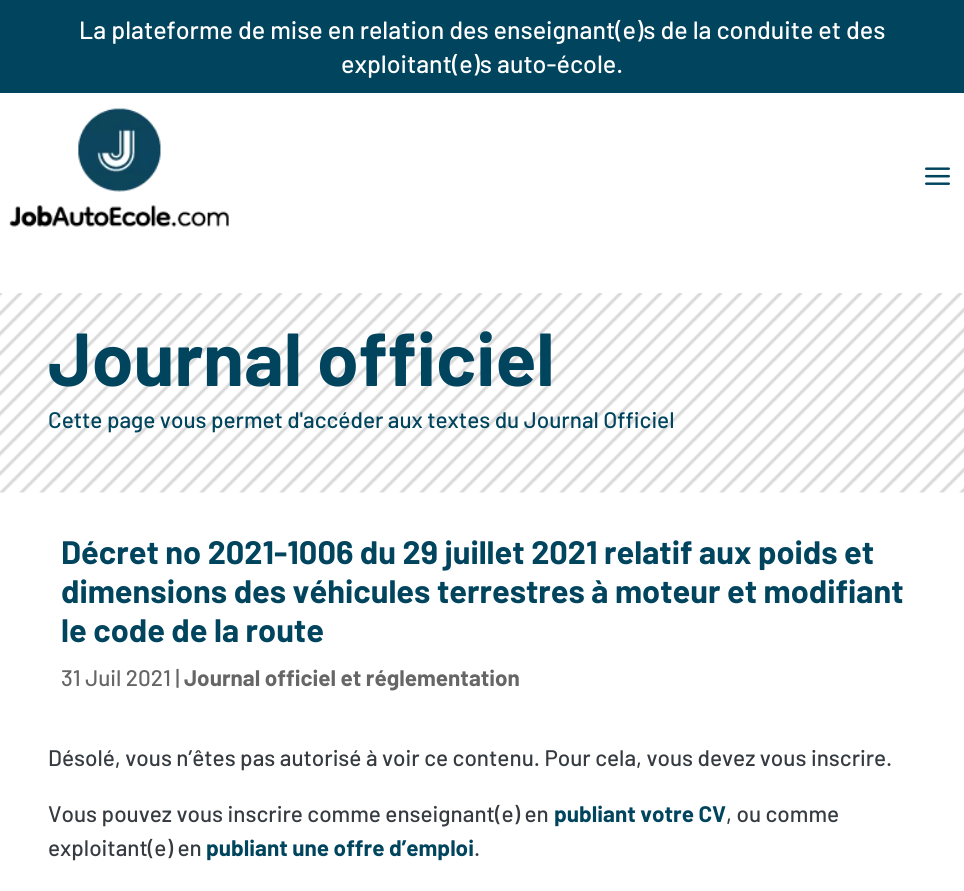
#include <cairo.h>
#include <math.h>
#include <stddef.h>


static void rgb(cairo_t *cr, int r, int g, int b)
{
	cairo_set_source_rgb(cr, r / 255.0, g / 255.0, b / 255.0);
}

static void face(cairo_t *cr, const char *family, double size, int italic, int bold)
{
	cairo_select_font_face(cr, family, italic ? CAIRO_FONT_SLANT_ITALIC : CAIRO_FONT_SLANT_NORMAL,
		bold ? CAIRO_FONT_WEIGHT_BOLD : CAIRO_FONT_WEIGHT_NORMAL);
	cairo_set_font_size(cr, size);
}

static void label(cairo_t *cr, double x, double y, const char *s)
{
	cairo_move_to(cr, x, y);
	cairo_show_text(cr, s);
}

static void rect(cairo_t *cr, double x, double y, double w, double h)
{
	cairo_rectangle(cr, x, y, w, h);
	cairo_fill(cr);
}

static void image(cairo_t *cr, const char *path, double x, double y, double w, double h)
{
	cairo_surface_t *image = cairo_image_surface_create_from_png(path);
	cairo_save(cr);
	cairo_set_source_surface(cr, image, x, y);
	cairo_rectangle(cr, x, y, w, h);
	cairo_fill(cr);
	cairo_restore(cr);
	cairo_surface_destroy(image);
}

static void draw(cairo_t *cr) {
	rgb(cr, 255, 255, 255);
	cairo_paint(cr);
	rgb(cr, 0, 68, 94);
	rect(cr, 0, 0, 964, 93);
	face(cr, "Barlow Medium", 25, 0, 0);
	rgb(cr, 255, 255, 255);
	label(cr, 79, 39, "La plateforme de mise en relation des enseignant(e)s de la conduite et des");
	label(cr, 341, 73, "exploitant(e)s auto-école.");
	image(cr, "image0.png", 9, 108, 220, 119);
	image(cr, "image1.png", 925, 167, 25, 18);
	image(cr, "image2.png", 0, 293, 964, 200);
	face(cr, "Barlow", 75, 0, 1);
	rgb(cr, 0, 68, 94);
	label(cr, 48, 386, "Journal officiel");
	face(cr, "Barlow Medium", 22.5, 0, 0);
	label(cr, 48, 428, "Cette page vous permet d'accéder aux textes du Journal Officiel");
	face(cr, "Barlow", 32.5, 0, 1);
	label(cr, 61, 564, "Décret no 2021-1006 du 29 juillet 2021 relatif aux poids et");
	label(cr, 61, 603, "dimensions des véhicules terrestres à moteur et modifiant");
	label(cr, 61, 642, "le code de la route");
	face(cr, "Barlow Medium", 22.5, 0, 0);
	rgb(cr, 102, 102, 102);
	label(cr, 61, 686, "31 Juil 2021 |");
	face(cr, "Barlow", 22.5, 0, 1);
	label(cr, 184, 686, "Journal officiel et réglementation");
	face(cr, "Barlow Medium", 22.5, 0, 0);
	rgb(cr, 53, 59, 65);
	label(cr, 48, 766, "Désolé, vous n’êtes pas autorisé à voir ce contenu. Pour cela, vous devez vous inscrire.");
	label(cr, 48, 822, "Vous pouvez vous inscrire comme enseignant(e) en");
	face(cr, "Barlow", 22.5, 0, 1);
	rgb(cr, 0, 68, 94);
	label(cr, 554, 822, "publiant votre CV");
	face(cr, "Barlow Medium", 22.5, 0, 0);
	rgb(cr, 53, 59, 65);
	label(cr, 726, 822, ", ou comme");
	label(cr, 48, 856, "exploitant(e) en");
	face(cr, "Barlow", 22.5, 0, 1);
	rgb(cr, 0, 68, 94);
	label(cr, 206, 856, "publiant une offre d’emploi");
	face(cr, "Barlow Medium", 22.5, 0, 0);
	rgb(cr, 53, 59, 65);
	label(cr, 474, 856, ".");
}

int main(void) {
	cairo_surface_t *surface = cairo_image_surface_create(CAIRO_FORMAT_RGB24, 964, 891);
	cairo_t *cr = cairo_create(surface);
	cairo_font_options_t *options = cairo_font_options_create();
	cairo_font_options_set_hint_metrics(options, CAIRO_HINT_METRICS_OFF);
	cairo_font_options_set_hint_style(options, CAIRO_HINT_STYLE_NONE);
	cairo_set_font_options(cr, options);
	cairo_set_miter_limit(cr, 4);
	draw(cr);
	cairo_surface_write_to_png(surface, "render.png");
	cairo_font_options_destroy(options);
	cairo_destroy(cr);
	cairo_surface_destroy(surface);
	return 0;
}
